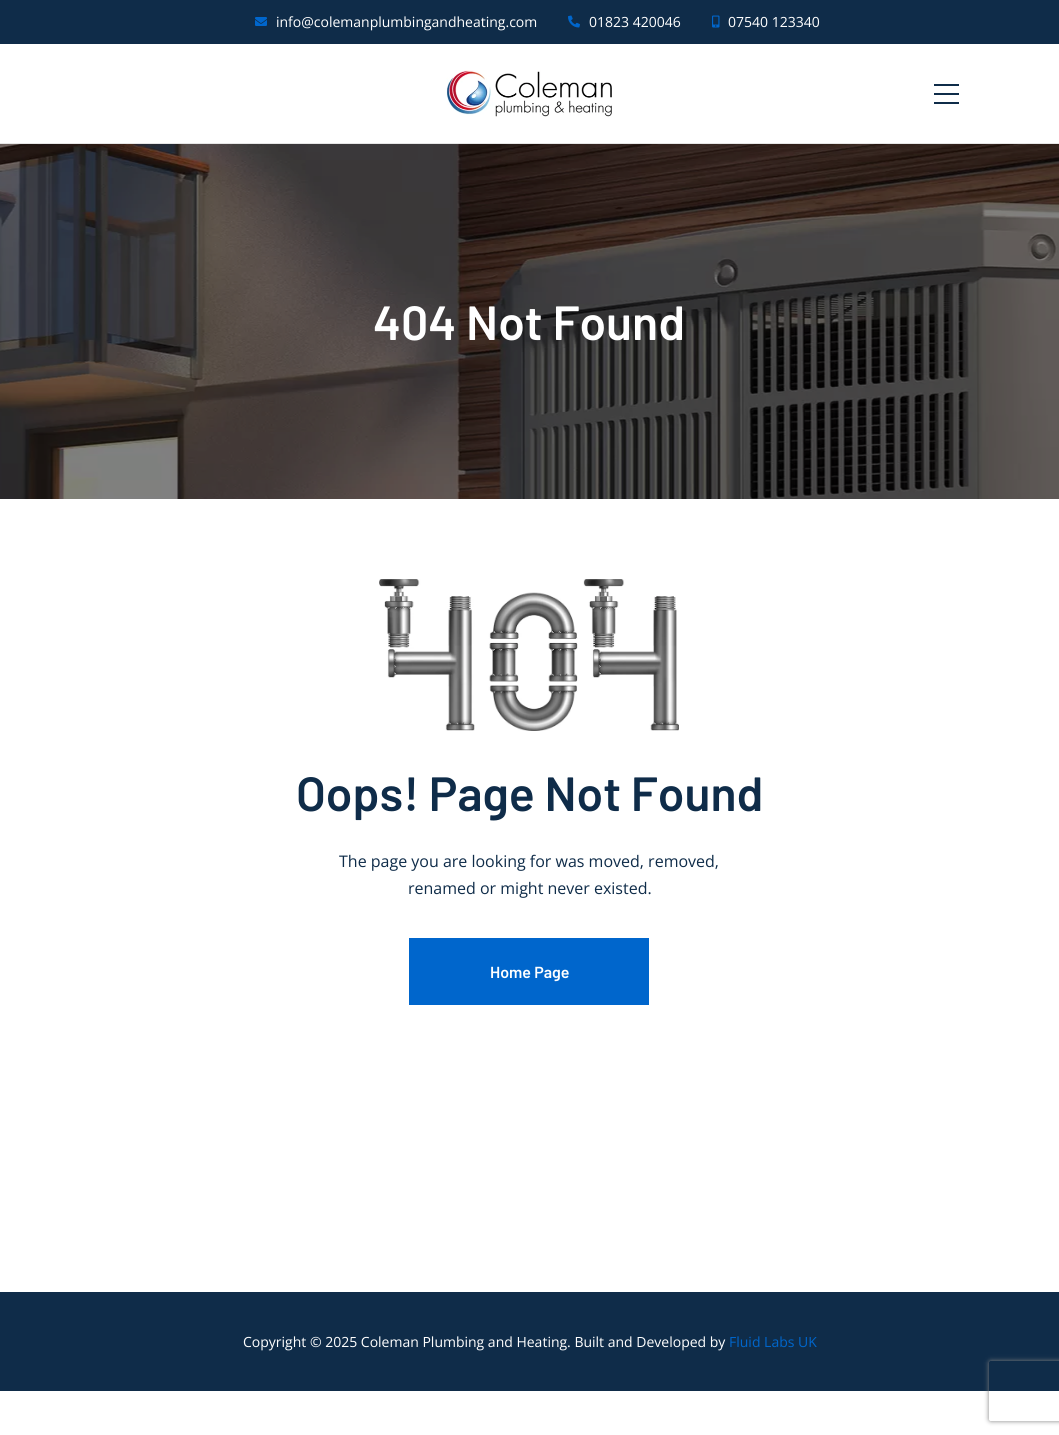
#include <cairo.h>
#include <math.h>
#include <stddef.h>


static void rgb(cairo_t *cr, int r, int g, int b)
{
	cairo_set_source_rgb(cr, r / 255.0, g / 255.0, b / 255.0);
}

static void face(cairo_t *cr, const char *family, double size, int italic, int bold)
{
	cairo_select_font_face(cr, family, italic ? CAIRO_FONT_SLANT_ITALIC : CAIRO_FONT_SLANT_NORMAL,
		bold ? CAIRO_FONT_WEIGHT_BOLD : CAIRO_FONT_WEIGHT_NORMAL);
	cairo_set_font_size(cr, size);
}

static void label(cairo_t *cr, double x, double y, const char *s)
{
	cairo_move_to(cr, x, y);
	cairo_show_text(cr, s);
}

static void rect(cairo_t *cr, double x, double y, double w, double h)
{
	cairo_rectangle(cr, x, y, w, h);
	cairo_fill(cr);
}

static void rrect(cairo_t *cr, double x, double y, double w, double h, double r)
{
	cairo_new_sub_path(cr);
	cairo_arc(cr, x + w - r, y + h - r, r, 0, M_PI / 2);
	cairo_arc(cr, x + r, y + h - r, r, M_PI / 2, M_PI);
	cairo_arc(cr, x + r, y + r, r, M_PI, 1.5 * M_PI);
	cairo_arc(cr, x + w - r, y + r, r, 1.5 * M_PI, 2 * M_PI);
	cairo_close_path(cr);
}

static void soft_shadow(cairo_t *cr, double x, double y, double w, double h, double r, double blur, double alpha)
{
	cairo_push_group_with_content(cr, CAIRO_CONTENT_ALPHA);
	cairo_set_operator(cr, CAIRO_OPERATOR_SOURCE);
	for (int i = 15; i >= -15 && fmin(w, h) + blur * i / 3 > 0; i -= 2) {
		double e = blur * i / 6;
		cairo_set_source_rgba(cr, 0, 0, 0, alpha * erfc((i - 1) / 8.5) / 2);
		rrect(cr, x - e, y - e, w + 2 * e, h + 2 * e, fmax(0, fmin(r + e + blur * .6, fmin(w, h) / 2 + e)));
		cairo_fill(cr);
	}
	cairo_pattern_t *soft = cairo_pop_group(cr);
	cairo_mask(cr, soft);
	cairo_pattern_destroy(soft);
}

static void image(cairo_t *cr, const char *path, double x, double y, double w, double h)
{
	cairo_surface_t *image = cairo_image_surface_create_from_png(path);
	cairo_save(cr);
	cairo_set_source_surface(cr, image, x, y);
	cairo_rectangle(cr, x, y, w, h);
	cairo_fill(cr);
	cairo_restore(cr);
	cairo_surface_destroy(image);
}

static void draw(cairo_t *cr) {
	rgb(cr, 255, 255, 255);
	cairo_paint(cr);
	rgb(cr, 15, 44, 73);
	rect(cr, 0, 0, 1059, 44);
	image(cr, "image0.png", 255, 17, 12, 9);
	face(cr, "Open Sans", 14, 0, 0);
	rgb(cr, 255, 255, 255);
	label(cr, 276, 27, "info@colemanplumbingandheating.com");
	image(cr, "image1.png", 568, 15, 12, 13);
	label(cr, 589, 27, "01823 420046");
	image(cr, "image2.png", 712, 15, 8, 13);
	label(cr, 728, 27, "07540 123340");
	image(cr, "image3.png", 446, 70, 166, 47);
	rgb(cr, 15, 44, 73);
	rect(cr, 934, 84, 25, 2);
	rect(cr, 934, 93, 25, 2);
	rect(cr, 934, 102, 25, 2);
	rgb(cr, 230, 230, 230);
	rect(cr, 0, 143, 1059, 1);
	image(cr, "image4.png", 0, 144, 1059, 355);
	face(cr, "Barlow SemiBold", 48, 0, 0);
	rgb(cr, 255, 255, 255);
	label(cr, 373, 340, "404 Not Found");
	image(cr, "image5.png", 379, 579, 300, 152);
	rgb(cr, 15, 44, 73);
	label(cr, 296, 811, "Oops! Page Not Found");
	face(cr, "Open Sans", 16, 0, 0);
	label(cr, 339, 867, "The page you are looking for was moved, removed,");
	label(cr, 408, 894, "renamed or might never existed.");
	rgb(cr, 0, 102, 204);
	rect(cr, 409, 938, 240, 67);
	face(cr, "Barlow SemiBold", 16, 0, 0);
	rgb(cr, 255, 255, 255);
	label(cr, 490, 978, "Home Page");
	rgb(cr, 15, 44, 73);
	rect(cr, 0, 1292, 1059, 99);
	face(cr, "Open Sans", 14, 0, 0);
	rgb(cr, 255, 255, 255);
	label(cr, 243, 1347, "Copyright © 2025 Coleman Plumbing and Heating. Built and Developed by");
	rgb(cr, 0, 102, 204);
	label(cr, 729, 1347, "Fluid Labs UK");
	cairo_save(cr);
	cairo_set_fill_rule(cr, CAIRO_FILL_RULE_EVEN_ODD);
	cairo_new_path(cr);
	cairo_move_to(cr, 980, 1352);
	cairo_line_to(cr, 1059, 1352);
	cairo_line_to(cr, 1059, 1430);
	cairo_line_to(cr, 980, 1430);
	cairo_close_path(cr);
	cairo_move_to(cr, 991, 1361);
	cairo_line_to(cr, 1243, 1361);
	cairo_curve_to(cr, 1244, 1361, 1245, 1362, 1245, 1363);
	cairo_line_to(cr, 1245, 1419);
	cairo_curve_to(cr, 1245, 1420, 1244, 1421, 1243, 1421);
	cairo_line_to(cr, 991, 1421);
	cairo_curve_to(cr, 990, 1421, 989, 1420, 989, 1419);
	cairo_line_to(cr, 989, 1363);
	cairo_curve_to(cr, 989, 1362, 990, 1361, 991, 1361);
	cairo_close_path(cr);
	cairo_clip(cr);
	rgb(cr, 128, 128, 128);
	soft_shadow(cr, 989, 1361, 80, 60, 2, 2.5, 1);
	cairo_restore(cr);
}

int main(void) {
	cairo_surface_t *surface = cairo_image_surface_create(CAIRO_FORMAT_RGB24, 1059, 1435);
	cairo_t *cr = cairo_create(surface);
	cairo_font_options_t *options = cairo_font_options_create();
	cairo_font_options_set_hint_metrics(options, CAIRO_HINT_METRICS_OFF);
	cairo_font_options_set_hint_style(options, CAIRO_HINT_STYLE_NONE);
	cairo_set_font_options(cr, options);
	cairo_set_miter_limit(cr, 4);
	draw(cr);
	cairo_surface_write_to_png(surface, "render.png");
	cairo_font_options_destroy(options);
	cairo_destroy(cr);
	cairo_surface_destroy(surface);
	return 0;
}
